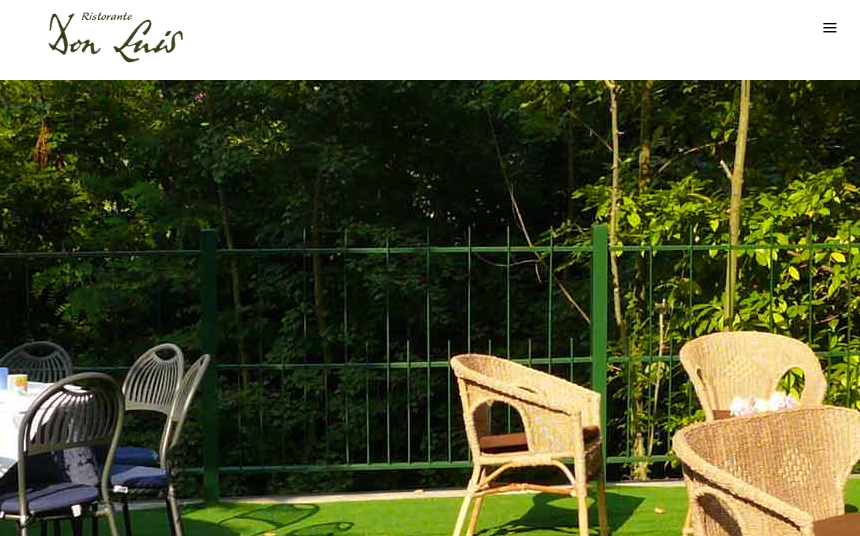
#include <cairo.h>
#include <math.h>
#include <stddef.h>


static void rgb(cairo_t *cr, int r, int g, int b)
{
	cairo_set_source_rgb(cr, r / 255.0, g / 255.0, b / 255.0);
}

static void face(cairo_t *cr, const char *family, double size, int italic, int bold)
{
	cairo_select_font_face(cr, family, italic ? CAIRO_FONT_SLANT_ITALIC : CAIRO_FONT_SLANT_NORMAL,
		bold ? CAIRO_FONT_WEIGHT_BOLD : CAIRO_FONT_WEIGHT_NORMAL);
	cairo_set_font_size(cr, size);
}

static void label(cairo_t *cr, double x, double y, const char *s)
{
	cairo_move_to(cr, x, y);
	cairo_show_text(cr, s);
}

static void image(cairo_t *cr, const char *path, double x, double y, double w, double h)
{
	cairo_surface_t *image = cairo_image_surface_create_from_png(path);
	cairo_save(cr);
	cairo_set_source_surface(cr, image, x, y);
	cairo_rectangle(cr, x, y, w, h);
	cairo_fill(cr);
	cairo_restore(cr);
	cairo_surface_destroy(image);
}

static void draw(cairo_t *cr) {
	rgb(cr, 255, 255, 255);
	cairo_paint(cr);
	image(cr, "image0.png", 48, 12, 136, 51);
	face(cr, "Liberation Serif", 28, 0, 0);
	rgb(cr, 0, 0, 0);
	label(cr, 822, 37, "≡");
	image(cr, "image1.png", 0, 80, 860, 456);
}

int main(void) {
	cairo_surface_t *surface = cairo_image_surface_create(CAIRO_FORMAT_RGB24, 860, 536);
	cairo_t *cr = cairo_create(surface);
	cairo_font_options_t *options = cairo_font_options_create();
	cairo_font_options_set_hint_metrics(options, CAIRO_HINT_METRICS_OFF);
	cairo_font_options_set_hint_style(options, CAIRO_HINT_STYLE_NONE);
	cairo_set_font_options(cr, options);
	cairo_set_miter_limit(cr, 4);
	draw(cr);
	cairo_surface_write_to_png(surface, "render.png");
	cairo_font_options_destroy(options);
	cairo_destroy(cr);
	cairo_surface_destroy(surface);
	return 0;
}
